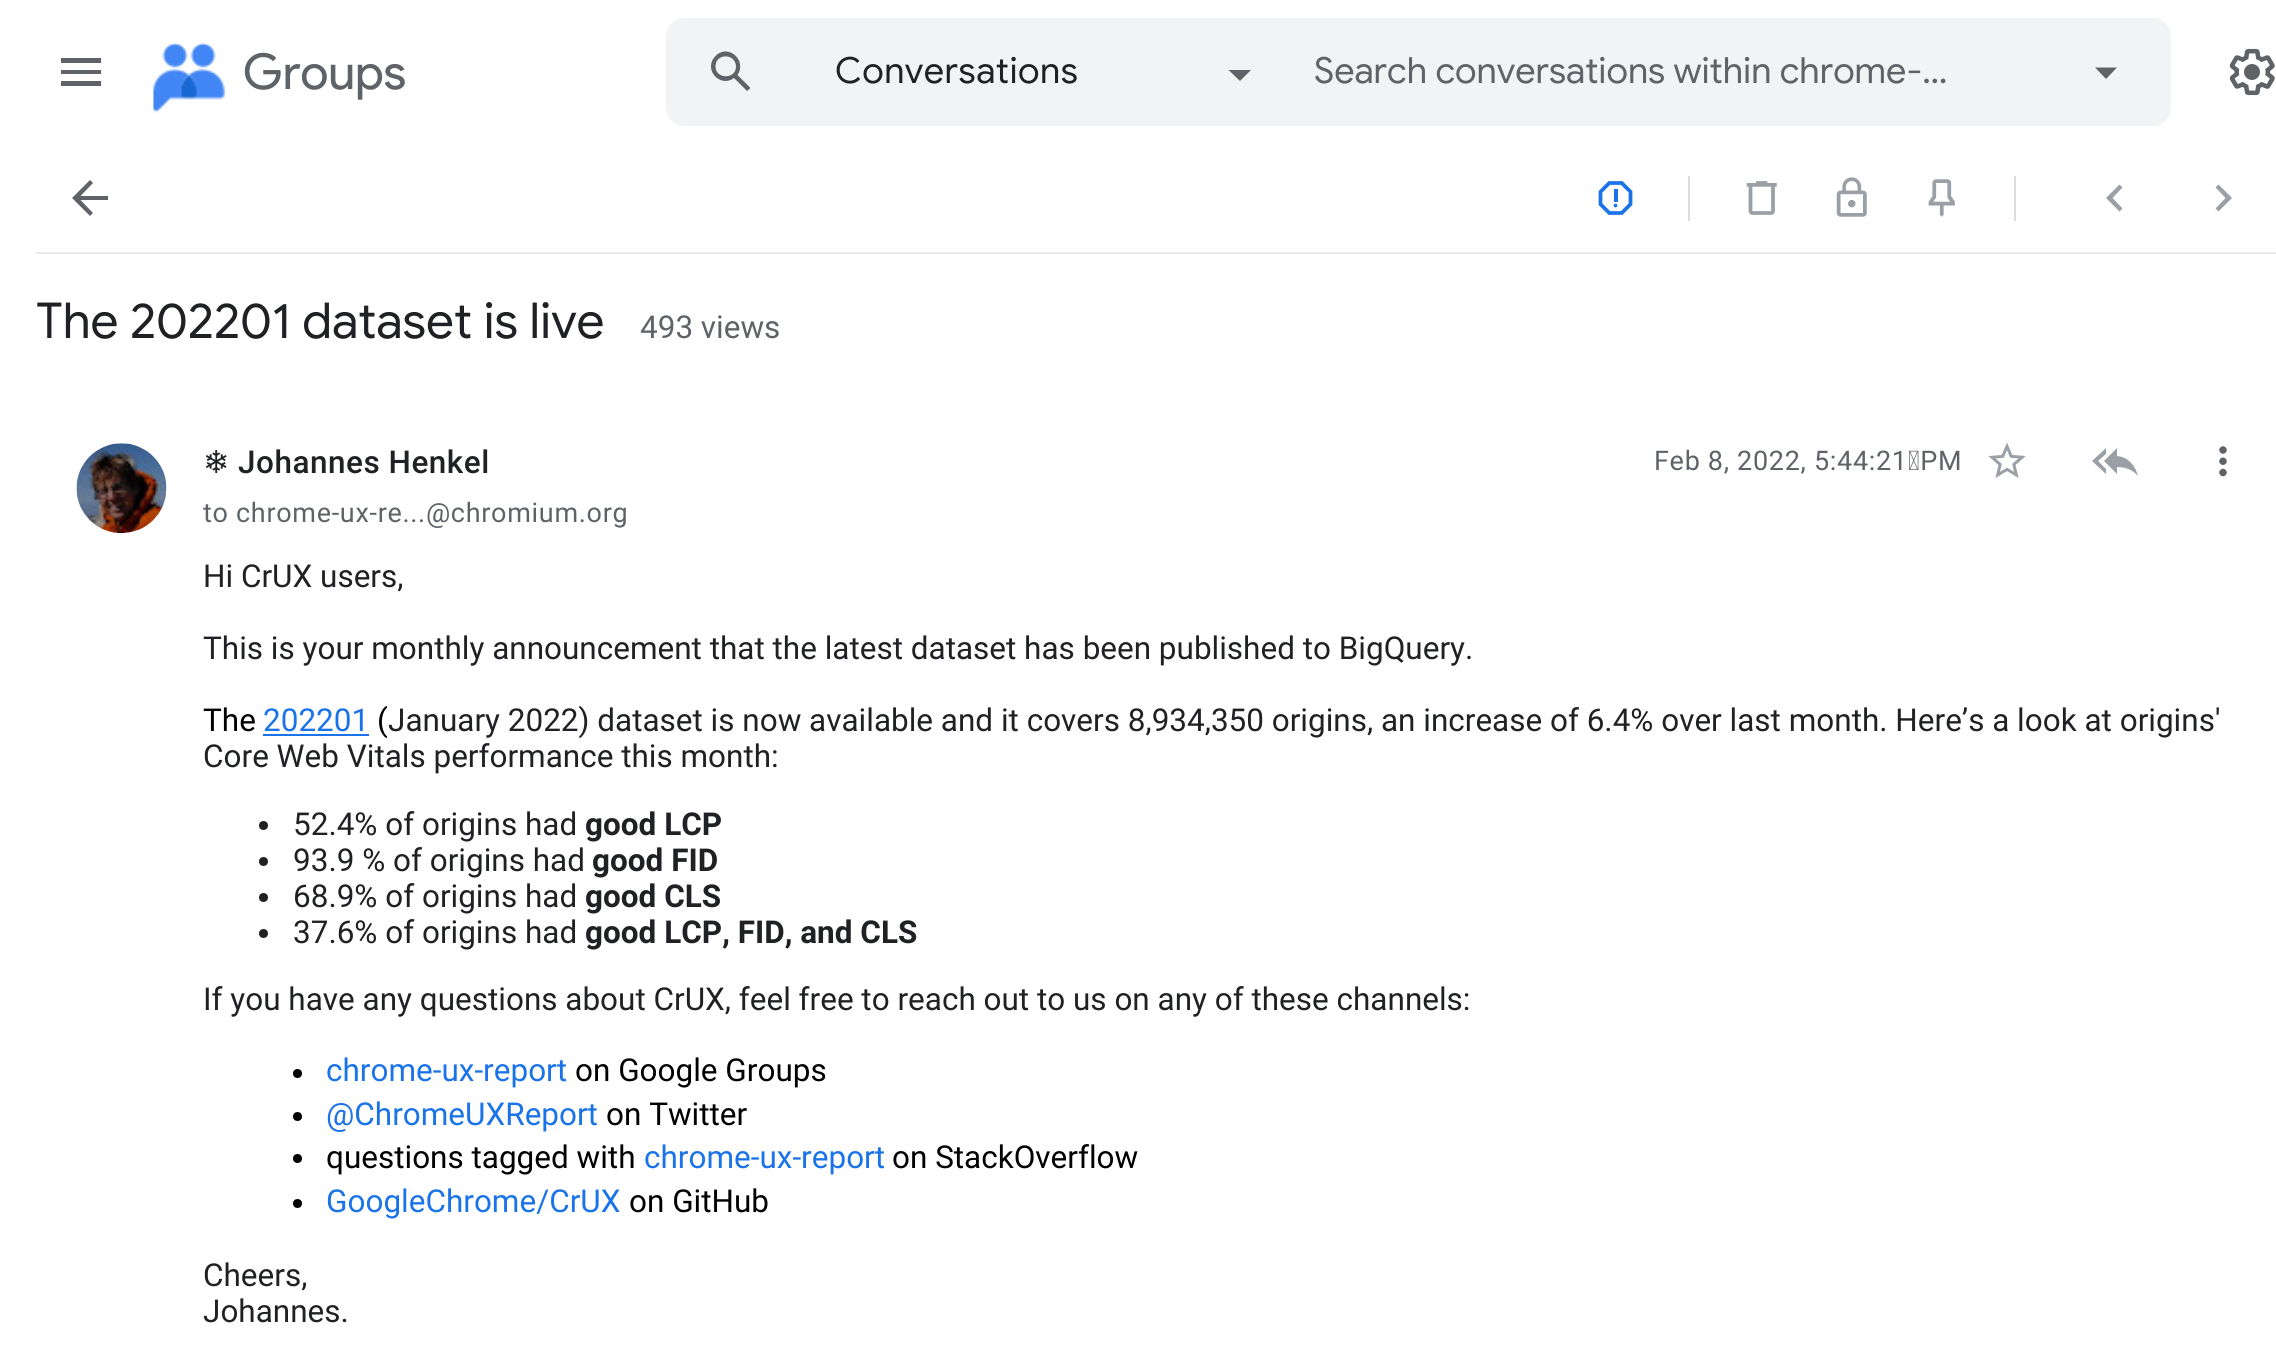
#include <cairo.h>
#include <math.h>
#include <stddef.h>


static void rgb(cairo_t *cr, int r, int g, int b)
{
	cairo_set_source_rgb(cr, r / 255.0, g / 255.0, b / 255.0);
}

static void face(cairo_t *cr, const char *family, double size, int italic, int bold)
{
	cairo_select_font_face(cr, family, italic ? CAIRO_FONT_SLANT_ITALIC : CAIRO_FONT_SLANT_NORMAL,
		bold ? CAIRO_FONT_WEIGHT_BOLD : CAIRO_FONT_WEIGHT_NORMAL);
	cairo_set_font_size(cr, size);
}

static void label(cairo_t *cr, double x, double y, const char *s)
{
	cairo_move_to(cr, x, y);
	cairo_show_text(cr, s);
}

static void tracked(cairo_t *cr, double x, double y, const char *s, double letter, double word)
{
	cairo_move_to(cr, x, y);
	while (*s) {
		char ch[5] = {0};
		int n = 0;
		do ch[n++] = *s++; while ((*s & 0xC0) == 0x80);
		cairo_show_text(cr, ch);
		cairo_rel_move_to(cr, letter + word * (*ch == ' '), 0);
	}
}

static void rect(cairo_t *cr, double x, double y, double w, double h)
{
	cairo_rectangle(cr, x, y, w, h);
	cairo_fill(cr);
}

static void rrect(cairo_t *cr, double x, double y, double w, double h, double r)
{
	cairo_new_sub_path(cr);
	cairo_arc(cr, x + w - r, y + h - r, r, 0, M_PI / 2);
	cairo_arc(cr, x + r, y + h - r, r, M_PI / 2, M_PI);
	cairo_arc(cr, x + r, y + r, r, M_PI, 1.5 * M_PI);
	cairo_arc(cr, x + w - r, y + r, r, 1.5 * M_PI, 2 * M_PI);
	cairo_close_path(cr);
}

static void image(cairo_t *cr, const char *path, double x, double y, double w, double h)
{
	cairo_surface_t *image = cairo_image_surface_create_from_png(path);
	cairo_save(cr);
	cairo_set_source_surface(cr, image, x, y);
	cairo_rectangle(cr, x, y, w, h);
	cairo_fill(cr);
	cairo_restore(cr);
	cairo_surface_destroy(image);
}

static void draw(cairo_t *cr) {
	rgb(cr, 255, 255, 255);
	cairo_paint(cr);
	rgb(cr, 95, 99, 104);
	cairo_new_path(cr);
	cairo_move_to(cr, 61, 86);
	cairo_line_to(cr, 101, 86);
	cairo_line_to(cr, 101, 81);
	cairo_line_to(cr, 61, 81);
	cairo_close_path(cr);
	cairo_move_to(cr, 61, 74);
	cairo_line_to(cr, 101, 74);
	cairo_line_to(cr, 101, 70);
	cairo_line_to(cr, 61, 70);
	cairo_close_path(cr);
	cairo_move_to(cr, 61, 58);
	cairo_line_to(cr, 61, 63);
	cairo_line_to(cr, 101, 63);
	cairo_line_to(cr, 101, 58);
	cairo_close_path(cr);
	cairo_fill(cr);
	image(cr, "image0.png", 153, 42, 73, 71);
	face(cr, "Product Sans", 49.5, 0, 0);
	label(cr, 243, 89, "Groups");
	rgb(cr, 241, 243, 244);
	rrect(cr, 666, 18, 1505, 108, 18);
	cairo_fill(cr);
	rgb(cr, 95, 99, 104);
	cairo_new_path(cr);
	cairo_move_to(cr, 750.5, 88);
	cairo_line_to(cr, 737.5, 75);
	cairo_curve_to(cr, 747.5, 60.5, 728, 43, 715.5, 56);
	cairo_curve_to(cr, 702.5, 69, 720, 88.5, 734, 78);
	cairo_line_to(cr, 747, 91);
	cairo_close_path(cr);
	cairo_move_to(cr, 715.5, 66.5);
	cairo_curve_to(cr, 715.5, 53, 735.5, 53, 736, 66.5);
	cairo_curve_to(cr, 736, 79.5, 715.5, 79.5, 715.5, 66.5);
	cairo_close_path(cr);
	cairo_fill(cr);
	face(cr, "Google Sans", 36, 0, 0);
	rgb(cr, 32, 33, 36);
	tracked(cr, 835, 83, "Conversations", 0.5, 0);
	rgb(cr, 95, 99, 104);
	cairo_new_path(cr);
	cairo_move_to(cr, 1228.5, 70);
	cairo_line_to(cr, 1251, 70);
	cairo_line_to(cr, 1240, 81);
	cairo_close_path(cr);
	cairo_fill(cr);
	label(cr, 1314, 83, "Search conversations within chrome-…");
	cairo_new_path(cr);
	cairo_move_to(cr, 2095, 67.5);
	cairo_line_to(cr, 2106, 79);
	cairo_line_to(cr, 2117, 67.5);
	cairo_close_path(cr);
	cairo_fill(cr);
	image(cr, "image1.png", 2229, 48, 46, 48);
	rgb(cr, 232, 234, 237);
	rect(cr, 36, 252, 2240, 2);
	rgb(cr, 95, 99, 104);
	cairo_new_path(cr);
	cairo_move_to(cr, 108, 196);
	cairo_line_to(cr, 108, 200);
	cairo_line_to(cr, 80.5, 200);
	cairo_line_to(cr, 93, 213);
	cairo_line_to(cr, 90, 216);
	cairo_line_to(cr, 72, 198);
	cairo_line_to(cr, 90, 180);
	cairo_line_to(cr, 93, 183);
	cairo_line_to(cr, 80.5, 196);
	cairo_close_path(cr);
	cairo_fill(cr);
	image(cr, "image2.png", 1598, 181, 35, 34);
	rgb(cr, 221, 221, 221);
	rect(cr, 1688, 176, 2, 45);
	image(cr, "image3.png", 1746, 181, 31, 34);
	image(cr, "image4.png", 1836, 177, 31, 40);
	image(cr, "image5.png", 1928, 179, 27, 38);
	rect(cr, 2014, 176, 2, 45);
	rgb(cr, 154, 160, 166);
	cairo_new_path(cr);
	cairo_move_to(cr, 2122.5, 187.5);
	cairo_line_to(cr, 2112.5, 198);
	cairo_line_to(cr, 2122.5, 208.5);
	cairo_line_to(cr, 2119.5, 211.5);
	cairo_line_to(cr, 2106, 198);
	cairo_line_to(cr, 2119.5, 184.5);
	cairo_close_path(cr);
	cairo_fill(cr);
	cairo_new_path(cr);
	cairo_move_to(cr, 2218.5, 184.5);
	cairo_line_to(cr, 2232, 198);
	cairo_line_to(cr, 2218.5, 211.5);
	cairo_line_to(cr, 2215.5, 208.5);
	cairo_line_to(cr, 2225.5, 198);
	cairo_line_to(cr, 2215.5, 187.5);
	cairo_close_path(cr);
	cairo_fill(cr);
	face(cr, "Google Sans", 49.5, 0, 0);
	rgb(cr, 32, 33, 36);
	label(cr, 36, 338, "The 202201 dataset is live");
	face(cr, "Roboto", 31.5, 0, 0);
	rgb(cr, 95, 99, 104);
	label(cr, 640, 338, "493 views");
	image(cr, "image6.png", 76, 443, 91, 91);
	face(cr, "DejaVu Sans", 31.5, 0, 0);
	rgb(cr, 32, 33, 36);
	tracked(cr, 203, 473, "❄", 0.5, 0);
	face(cr, "Roboto Medium", 31.5, 0, 0);
	tracked(cr, 238, 473, "Johannes Henkel", 0.5, 0);
	face(cr, "Roboto", 27, 0, 0);
	rgb(cr, 95, 99, 104);
	tracked(cr, 1654, 470, "Feb 8, 2022, 5:44:21 PM", 0.7, 0);
	image(cr, "image7.png", 1988, 442, 38, 36);
	rgb(cr, 154, 160, 166);
	cairo_new_path(cr);
	cairo_move_to(cr, 2117, 456);
	cairo_curve_to(cr, 2128, 457, 2135, 465, 2138, 476);
	cairo_curve_to(cr, 2133, 470, 2126, 467, 2117, 467);
	cairo_line_to(cr, 2117, 474);
	cairo_line_to(cr, 2104, 461);
	cairo_line_to(cr, 2117, 448);
	cairo_close_path(cr);
	cairo_move_to(cr, 2106, 454);
	cairo_line_to(cr, 2098, 461);
	cairo_line_to(cr, 2106, 469);
	cairo_line_to(cr, 2106, 474);
	cairo_line_to(cr, 2092, 461);
	cairo_line_to(cr, 2106, 448);
	cairo_close_path(cr);
	cairo_fill(cr);
	image(cr, "image8.png", 2219, 446, 8, 31);
	rgb(cr, 95, 99, 104);
	tracked(cr, 203, 522, "to chrome-ux-re...@chromium.org", 0.7, 0);
	face(cr, "Roboto", 31.5, 0, 0);
	rgb(cr, 32, 33, 36);
	label(cr, 203, 587, "Hi CrUX users,");
	label(cr, 203, 659, "This is your monthly announcement that the latest dataset has been published to BigQuery.");
	rgb(cr, 0, 0, 0);
	label(cr, 203, 731, "The");
	rgb(cr, 26, 115, 232);
	label(cr, 263, 731, "202201");
	rect(cr, 263, 734, 106, 2);
	rgb(cr, 0, 0, 0);
	label(cr, 377, 731, "(");
	rgb(cr, 32, 33, 36);
	label(cr, 388, 731, "January 2022) dataset is now available and it covers 8,934,350 origins, an increase of 6.4% over last month. Here’s a look at origins'");
	label(cr, 203, 767, "Core Web Vitals performance this month:");
	rgb(cr, 33, 33, 33);
	cairo_new_path(cr);
	cairo_arc(cr, 263.5, 825.5, 4.5, 0, 2 * M_PI);
	cairo_fill(cr);
	rgb(cr, 32, 33, 36);
	label(cr, 293, 835, "52.4% of origins had");
	face(cr, "Roboto", 31.5, 0, 1);
	label(cr, 585, 835, "good LCP");
	rgb(cr, 33, 33, 33);
	cairo_new_path(cr);
	cairo_arc(cr, 263.5, 861.5, 4.5, 0, 2 * M_PI);
	cairo_fill(cr);
	face(cr, "Roboto", 31.5, 0, 0);
	rgb(cr, 32, 33, 36);
	label(cr, 293, 871, "93.9 % of origins had");
	face(cr, "Roboto", 31.5, 0, 1);
	label(cr, 592, 871, "good FID");
	rgb(cr, 33, 33, 33);
	cairo_new_path(cr);
	cairo_arc(cr, 263.5, 897.5, 4.5, 0, 2 * M_PI);
	cairo_fill(cr);
	face(cr, "Roboto", 31.5, 0, 0);
	rgb(cr, 32, 33, 36);
	label(cr, 293, 907, "68.9% of origins had");
	face(cr, "Roboto", 31.5, 0, 1);
	label(cr, 585, 907, "good CLS");
	rgb(cr, 33, 33, 33);
	cairo_new_path(cr);
	cairo_arc(cr, 263.5, 933.5, 4.5, 0, 2 * M_PI);
	cairo_fill(cr);
	face(cr, "Roboto", 31.5, 0, 0);
	rgb(cr, 32, 33, 36);
	label(cr, 293, 943, "37.6% of origins had");
	face(cr, "Roboto", 31.5, 0, 1);
	label(cr, 585, 943, "good LCP, FID, and CLS");
	face(cr, "Roboto", 31.5, 0, 0);
	label(cr, 203, 1010, "If you have any questions about CrUX, feel free to reach out to us on any of these channels:");
	rgb(cr, 0, 0, 0);
	cairo_new_path(cr);
	cairo_arc(cr, 297.5, 1073.5, 4.5, 0, 2 * M_PI);
	cairo_fill(cr);
	rgb(cr, 26, 115, 232);
	label(cr, 326, 1081, "chrome-ux-report");
	rgb(cr, 0, 0, 0);
	label(cr, 575, 1081, "on Google Groups");
	cairo_new_path(cr);
	cairo_arc(cr, 297.5, 1116.5, 4.5, 0, 2 * M_PI);
	cairo_fill(cr);
	rgb(cr, 26, 115, 232);
	label(cr, 326, 1125, "@ChromeUXReport");
	rgb(cr, 0, 0, 0);
	label(cr, 606, 1125, "on Twitter");
	cairo_new_path(cr);
	cairo_arc(cr, 297.5, 1158.5, 4.5, 0, 2 * M_PI);
	cairo_fill(cr);
	label(cr, 326, 1168, "questions tagged with");
	rgb(cr, 26, 115, 232);
	label(cr, 644, 1168, "chrome-ux-report");
	rgb(cr, 0, 0, 0);
	label(cr, 892, 1168, "on StackOverflow");
	cairo_new_path(cr);
	cairo_arc(cr, 297.5, 1203.5, 4.5, 0, 2 * M_PI);
	cairo_fill(cr);
	rgb(cr, 26, 115, 232);
	label(cr, 326, 1212, "GoogleChrome/CrUX");
	rgb(cr, 0, 0, 0);
	label(cr, 629, 1212, "on GitHub");
	rgb(cr, 32, 33, 36);
	label(cr, 203, 1286, "Cheers,");
	label(cr, 203, 1322, "Johannes.");
}

int main(void) {
	cairo_surface_t *surface = cairo_image_surface_create(CAIRO_FORMAT_RGB24, 2276, 1372);
	cairo_t *cr = cairo_create(surface);
	cairo_font_options_t *options = cairo_font_options_create();
	cairo_font_options_set_hint_metrics(options, CAIRO_HINT_METRICS_OFF);
	cairo_font_options_set_hint_style(options, CAIRO_HINT_STYLE_NONE);
	cairo_set_font_options(cr, options);
	cairo_set_miter_limit(cr, 4);
	draw(cr);
	cairo_surface_write_to_png(surface, "render.png");
	cairo_font_options_destroy(options);
	cairo_destroy(cr);
	cairo_surface_destroy(surface);
	return 0;
}
